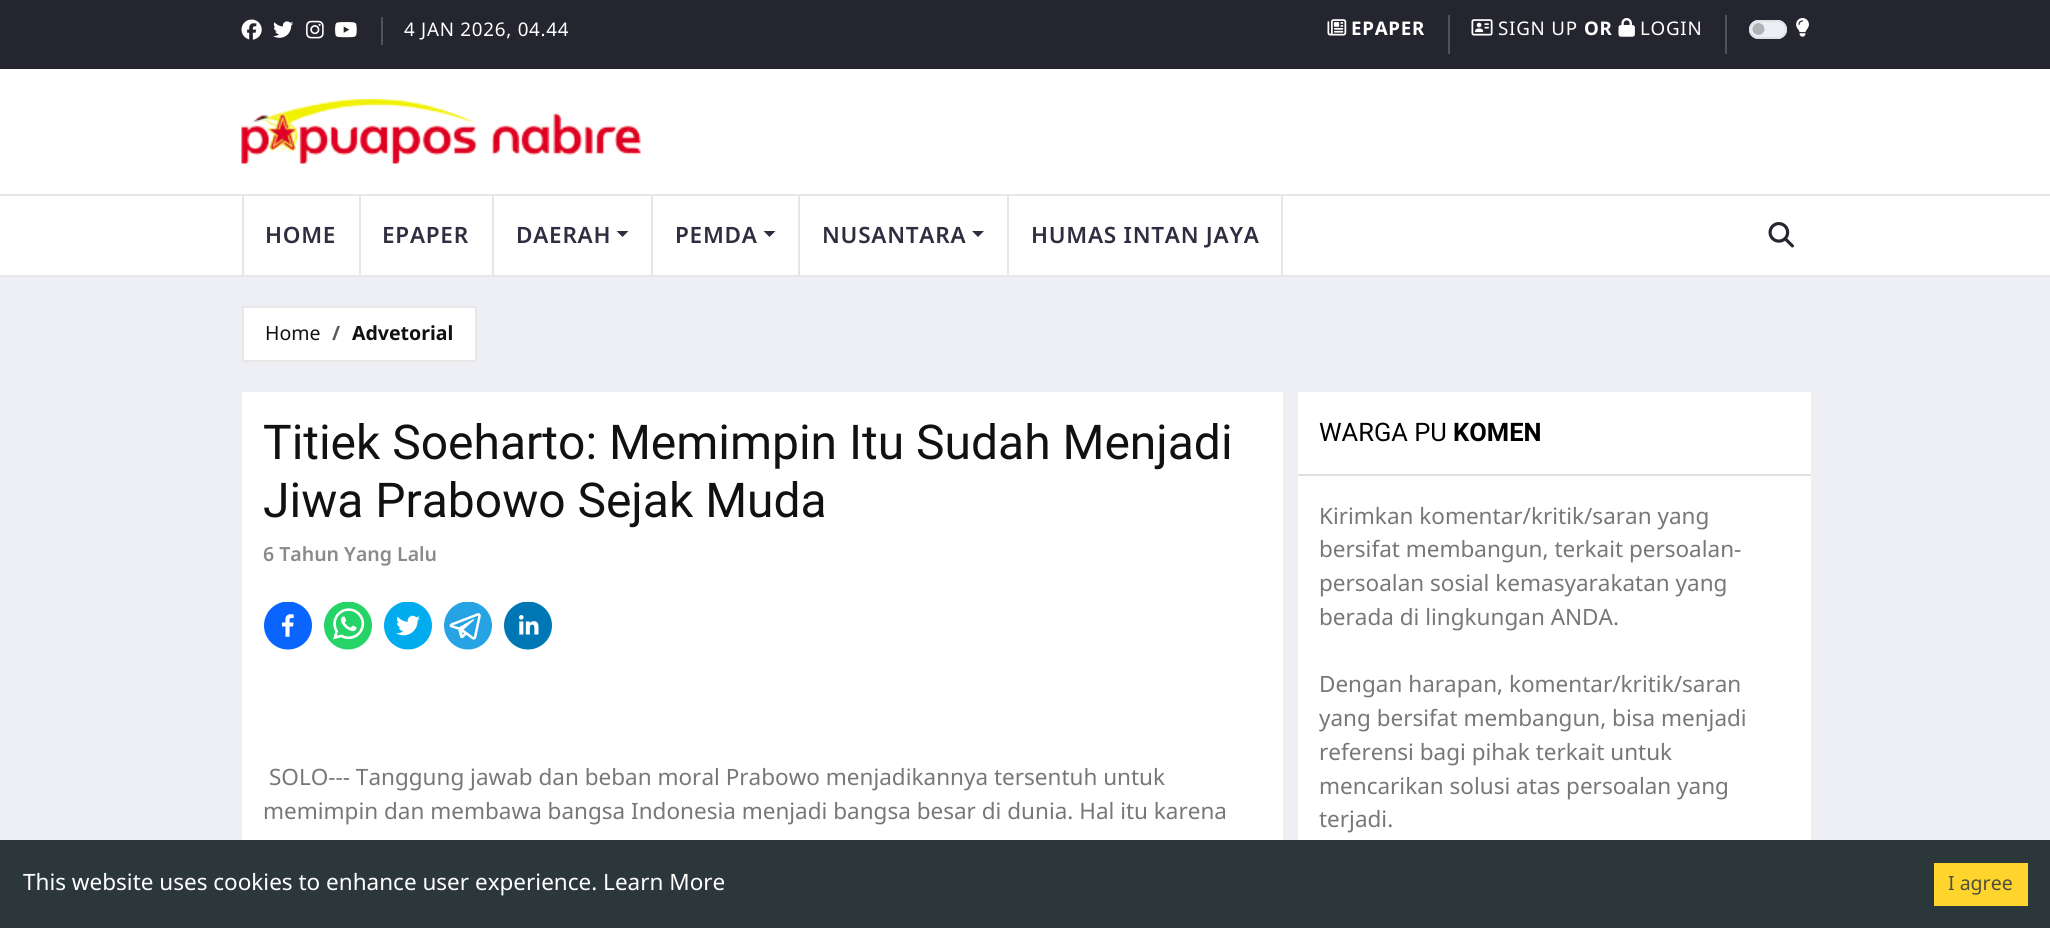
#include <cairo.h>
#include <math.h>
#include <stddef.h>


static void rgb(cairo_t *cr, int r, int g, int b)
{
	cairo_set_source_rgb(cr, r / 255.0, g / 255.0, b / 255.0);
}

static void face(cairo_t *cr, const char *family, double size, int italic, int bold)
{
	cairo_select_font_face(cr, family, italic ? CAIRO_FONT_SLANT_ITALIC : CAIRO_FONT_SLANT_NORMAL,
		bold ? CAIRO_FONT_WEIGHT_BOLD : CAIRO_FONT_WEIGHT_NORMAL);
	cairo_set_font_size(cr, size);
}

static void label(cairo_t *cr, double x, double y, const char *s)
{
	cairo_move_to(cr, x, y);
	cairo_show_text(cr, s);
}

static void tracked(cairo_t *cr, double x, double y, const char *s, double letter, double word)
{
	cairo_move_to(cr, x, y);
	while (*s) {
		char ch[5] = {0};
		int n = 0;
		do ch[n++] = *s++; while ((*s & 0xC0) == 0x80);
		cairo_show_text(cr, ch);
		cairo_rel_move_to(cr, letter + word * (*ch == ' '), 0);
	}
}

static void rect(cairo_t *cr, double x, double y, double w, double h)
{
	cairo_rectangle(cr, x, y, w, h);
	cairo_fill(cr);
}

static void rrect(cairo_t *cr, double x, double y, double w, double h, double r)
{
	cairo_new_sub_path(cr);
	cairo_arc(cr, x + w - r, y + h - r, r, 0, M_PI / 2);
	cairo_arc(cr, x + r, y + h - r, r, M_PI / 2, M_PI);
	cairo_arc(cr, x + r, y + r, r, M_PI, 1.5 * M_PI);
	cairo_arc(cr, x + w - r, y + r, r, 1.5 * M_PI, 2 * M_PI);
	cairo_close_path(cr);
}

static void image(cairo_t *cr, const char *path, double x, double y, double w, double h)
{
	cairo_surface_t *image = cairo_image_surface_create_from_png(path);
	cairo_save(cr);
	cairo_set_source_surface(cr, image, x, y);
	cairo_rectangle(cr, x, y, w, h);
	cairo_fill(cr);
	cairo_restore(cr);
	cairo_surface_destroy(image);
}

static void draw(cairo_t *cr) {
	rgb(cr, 237, 239, 244);
	cairo_paint(cr);
	rgb(cr, 36, 37, 47);
	rect(cr, 0, 0, 2050, 69);
	image(cr, "image0.png", 241, 19, 21, 21);
	image(cr, "image1.png", 273, 21, 21, 17);
	image(cr, "image2.png", 306, 20, 18, 19);
	image(cr, "image3.png", 335, 22, 22, 16);
	rgb(cr, 80, 81, 89);
	rect(cr, 381, 17, 2, 28);
	face(cr, "Noto Sans", 18.75, 0, 0);
	rgb(cr, 255, 255, 255);
	tracked(cr, 404, 36, "4 JAN 2026, 04.44", 0.75, 0);
	image(cr, "image4.png", 1327, 19, 20, 17);
	face(cr, "Noto Sans", 18.75, 0, 1);
	tracked(cr, 1351, 35, "EPAPER", 0.75, 0);
	rgb(cr, 80, 81, 89);
	rect(cr, 1448, 15, 2, 39);
	image(cr, "image5.png", 1471, 19, 22, 17);
	face(cr, "Noto Sans", 18.75, 0, 0);
	rgb(cr, 255, 255, 255);
	tracked(cr, 1498, 35, "SIGN UP", 0.75, 0);
	face(cr, "Noto Sans", 18.75, 0, 1);
	tracked(cr, 1584, 35, "OR", 0.75, 0);
	image(cr, "image6.png", 1618, 18, 17, 19);
	face(cr, "Noto Sans", 18.75, 0, 0);
	tracked(cr, 1640, 35, "LOGIN", 0.75, 0);
	rgb(cr, 80, 81, 89);
	rect(cr, 1725, 15, 2, 39);
	rgb(cr, 237, 239, 244);
	rrect(cr, 1749, 20, 38, 19, 9.5);
	cairo_fill(cr);
	rgb(cr, 178, 179, 183);
	cairo_arc(cr, 1758.5, 29, 6, 0, 2 * M_PI);
	cairo_fill(cr);
	rrect(cr, 1750, 21, 36, 17, 8.5);
	rgb(cr, 222, 226, 230);
	cairo_stroke(cr);
	image(cr, "image7.png", 1796, 18, 13, 19);
	rgb(cr, 255, 255, 255);
	rect(cr, 0, 69, 2050, 125);
	image(cr, "image8.png", 241, 99, 400, 65);
	rect(cr, 0, 196, 2050, 79);
	rgb(cr, 231, 231, 231);
	rect(cr, 0, 194, 2050, 2);
	rect(cr, 0, 275, 2050, 2);
	rect(cr, 242, 195, 2, 80);
	face(cr, "Noto Sans SemiBold", 22.5, 0, 0);
	rgb(cr, 47, 46, 65);
	tracked(cr, 265, 243, "HOME", 0.75, 0);
	rgb(cr, 231, 231, 231);
	rect(cr, 359, 195, 2, 80);
	rgb(cr, 47, 46, 65);
	tracked(cr, 382, 243, "EPAPER", 0.75, 0);
	rgb(cr, 231, 231, 231);
	rect(cr, 492, 195, 2, 80);
	rgb(cr, 47, 46, 65);
	tracked(cr, 516, 243, "DAERAH", 0.75, 0);
	cairo_new_path(cr);
	cairo_move_to(cr, 616.5, 231);
	cairo_line_to(cr, 628.5, 231);
	cairo_line_to(cr, 622.5, 237);
	cairo_close_path(cr);
	cairo_fill(cr);
	rgb(cr, 231, 231, 231);
	rect(cr, 651, 195, 2, 80);
	rgb(cr, 47, 46, 65);
	tracked(cr, 675, 243, "PEMDA", 0.75, 0);
	cairo_new_path(cr);
	cairo_move_to(cr, 763.5, 231);
	cairo_line_to(cr, 775.5, 231);
	cairo_line_to(cr, 769.5, 237);
	cairo_close_path(cr);
	cairo_fill(cr);
	rgb(cr, 231, 231, 231);
	rect(cr, 798, 195, 2, 80);
	rgb(cr, 47, 46, 65);
	tracked(cr, 822, 243, "NUSANTARA", 0.75, 0);
	cairo_new_path(cr);
	cairo_move_to(cr, 972, 231);
	cairo_line_to(cr, 984, 231);
	cairo_line_to(cr, 978, 237);
	cairo_close_path(cr);
	cairo_fill(cr);
	rgb(cr, 231, 231, 231);
	rect(cr, 1281, 195, 2, 80);
	rect(cr, 1007, 195, 2, 80);
	rgb(cr, 47, 46, 65);
	tracked(cr, 1031, 243, "HUMAS INTAN JAYA", 0.75, 0);
	image(cr, "image9.png", 1768, 222, 26, 26);
	rgb(cr, 255, 255, 255);
	cairo_rectangle(cr, 243, 307, 233, 54);
	cairo_fill_preserve(cr);
	rgb(cr, 231, 231, 231);
	cairo_stroke(cr);
	face(cr, "Noto Sans", 19.5, 0, 0);
	rgb(cr, 17, 17, 17);
	label(cr, 265, 340, "Home");
	face(cr, "Noto Sans", 19.5, 0, 1);
	rgb(cr, 89, 92, 95);
	label(cr, 332, 340, "/");
	rgb(cr, 17, 17, 17);
	label(cr, 352, 340, "Advetorial");
	rgb(cr, 255, 255, 255);
	rect(cr, 242, 392, 1041, 448);
	face(cr, "Roboto", 48, 0, 0);
	rgb(cr, 17, 17, 17);
	label(cr, 263, 459, "Titiek Soeharto: Memimpin Itu Sudah Menjadi");
	label(cr, 263, 517, "Jiwa Prabowo Sejak Muda");
	face(cr, "Noto Sans SemiBold", 19.5, 0, 0);
	rgb(cr, 138, 138, 138);
	label(cr, 263, 561, "6 Tahun Yang Lalu");
	image(cr, "image10.png", 264, 602, 48, 48);
	image(cr, "image11.png", 324, 602, 48, 48);
	image(cr, "image12.png", 384, 602, 48, 48);
	image(cr, "image13.png", 444, 602, 48, 48);
	image(cr, "image14.png", 504, 602, 48, 48);
	face(cr, "Noto Sans", 22.5, 0, 0);
	rgb(cr, 119, 119, 119);
	label(cr, 269, 785, "SOLO--- Tanggung jawab dan beban moral Prabowo menjadikannya tersentuh untuk");
	label(cr, 263, 819, "memimpin dan membawa bangsa Indonesia menjadi bangsa besar di dunia. Hal itu karena");
	rgb(cr, 255, 255, 255);
	rect(cr, 1298, 392, 513, 448);
	rgb(cr, 224, 224, 224);
	rect(cr, 1298, 474, 513, 2);
	face(cr, "Roboto", 25.5, 0, 0);
	rgb(cr, 0, 0, 0);
	label(cr, 1319, 441, "WARGA PU");
	face(cr, "Roboto", 25.5, 0, 1);
	label(cr, 1453, 441, "KOMEN");
	face(cr, "Noto Sans", 22.5, 0, 0);
	rgb(cr, 119, 119, 119);
	label(cr, 1319, 524, "Kirimkan komentar/kritik/saran yang");
	label(cr, 1319, 557, "bersifat membangun, terkait persoalan-");
	label(cr, 1319, 591, "persoalan sosial kemasyarakatan yang");
	label(cr, 1319, 625, "berada di lingkungan ANDA.");
	label(cr, 1319, 692, "Dengan harapan, komentar/kritik/saran");
	label(cr, 1319, 726, "yang bersifat membangun, bisa menjadi");
	label(cr, 1319, 760, "referensi bagi pihak terkait untuk");
	label(cr, 1319, 794, "mencarikan solusi atas persoalan yang");
	label(cr, 1319, 827, "terjadi.");
	rgb(cr, 43, 55, 59);
	rect(cr, 0, 840, 2050, 88);
	rgb(cr, 255, 255, 255);
	label(cr, 23, 890, "This website uses cookies to enhance user experience. Learn More");
	rgb(cr, 255, 212, 45);
	rect(cr, 1934, 863, 94, 43);
	face(cr, "Noto Sans", 19.5, 0, 0);
	rgb(cr, 78, 80, 59);
	label(cr, 1948, 890, "I agree");
}

int main(void) {
	cairo_surface_t *surface = cairo_image_surface_create(CAIRO_FORMAT_RGB24, 2050, 928);
	cairo_t *cr = cairo_create(surface);
	cairo_font_options_t *options = cairo_font_options_create();
	cairo_font_options_set_hint_metrics(options, CAIRO_HINT_METRICS_OFF);
	cairo_font_options_set_hint_style(options, CAIRO_HINT_STYLE_NONE);
	cairo_set_font_options(cr, options);
	cairo_set_miter_limit(cr, 4);
	draw(cr);
	cairo_surface_write_to_png(surface, "render.png");
	cairo_font_options_destroy(options);
	cairo_destroy(cr);
	cairo_surface_destroy(surface);
	return 0;
}
